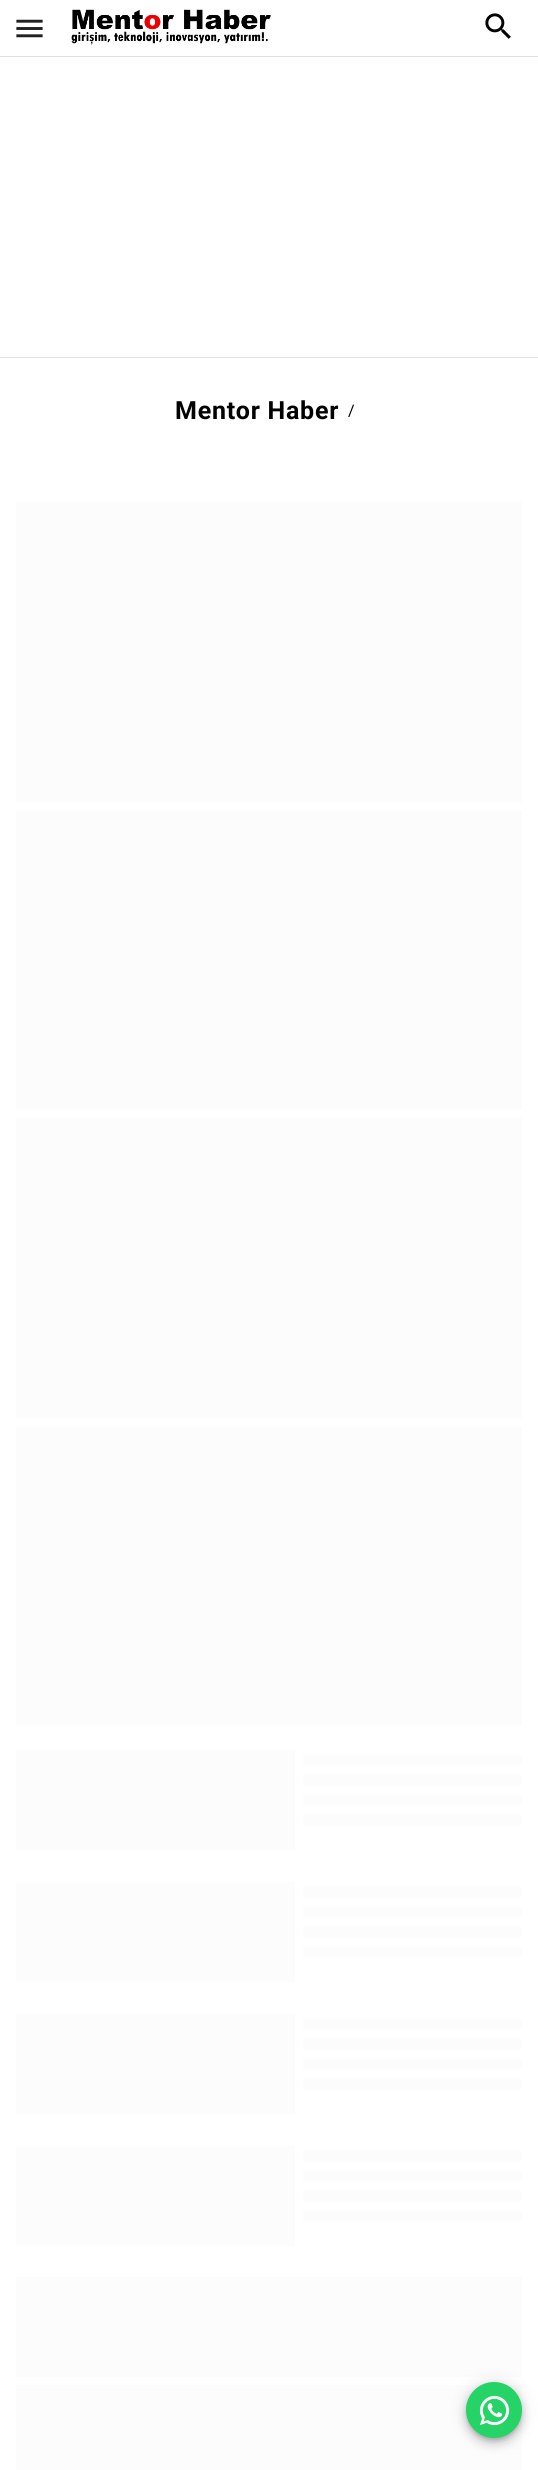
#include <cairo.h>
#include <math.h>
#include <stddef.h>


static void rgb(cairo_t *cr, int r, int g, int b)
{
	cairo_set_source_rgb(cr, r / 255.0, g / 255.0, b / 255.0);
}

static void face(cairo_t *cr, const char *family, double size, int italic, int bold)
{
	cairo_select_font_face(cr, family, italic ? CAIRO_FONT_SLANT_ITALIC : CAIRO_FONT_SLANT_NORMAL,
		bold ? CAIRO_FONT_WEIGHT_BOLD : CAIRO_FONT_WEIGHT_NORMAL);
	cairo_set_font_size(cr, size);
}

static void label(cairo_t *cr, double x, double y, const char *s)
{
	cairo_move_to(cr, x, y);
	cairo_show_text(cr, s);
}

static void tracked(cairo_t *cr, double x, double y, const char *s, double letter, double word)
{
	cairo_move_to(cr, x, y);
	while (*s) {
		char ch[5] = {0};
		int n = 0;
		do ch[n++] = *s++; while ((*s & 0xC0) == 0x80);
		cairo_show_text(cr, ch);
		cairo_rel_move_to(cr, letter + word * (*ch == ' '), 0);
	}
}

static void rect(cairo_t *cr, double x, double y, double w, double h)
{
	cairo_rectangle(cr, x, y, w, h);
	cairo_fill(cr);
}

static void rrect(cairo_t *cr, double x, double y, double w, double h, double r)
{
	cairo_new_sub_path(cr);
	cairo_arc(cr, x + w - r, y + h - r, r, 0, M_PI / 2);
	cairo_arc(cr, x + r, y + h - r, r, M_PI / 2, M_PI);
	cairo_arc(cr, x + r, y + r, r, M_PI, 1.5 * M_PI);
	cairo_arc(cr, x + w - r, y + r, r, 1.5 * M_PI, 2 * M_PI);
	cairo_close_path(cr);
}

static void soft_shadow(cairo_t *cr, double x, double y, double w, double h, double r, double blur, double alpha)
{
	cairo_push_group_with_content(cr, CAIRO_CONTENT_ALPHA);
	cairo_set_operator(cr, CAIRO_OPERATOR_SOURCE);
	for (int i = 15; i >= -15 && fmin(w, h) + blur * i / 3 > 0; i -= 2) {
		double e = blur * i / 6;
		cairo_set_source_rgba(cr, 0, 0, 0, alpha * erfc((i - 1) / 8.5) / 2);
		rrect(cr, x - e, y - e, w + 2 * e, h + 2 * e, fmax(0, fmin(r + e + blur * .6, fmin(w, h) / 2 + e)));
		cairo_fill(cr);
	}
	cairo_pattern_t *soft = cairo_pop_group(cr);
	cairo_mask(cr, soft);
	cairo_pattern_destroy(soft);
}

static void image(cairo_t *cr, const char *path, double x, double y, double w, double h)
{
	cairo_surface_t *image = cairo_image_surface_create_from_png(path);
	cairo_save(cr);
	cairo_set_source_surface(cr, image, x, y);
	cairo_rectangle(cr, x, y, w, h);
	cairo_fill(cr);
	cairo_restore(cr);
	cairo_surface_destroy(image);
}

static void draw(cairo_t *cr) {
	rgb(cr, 255, 255, 255);
	cairo_paint(cr);
	image(cr, "image0.png", 16, 19, 27, 19);
	image(cr, "image1.png", 71, 9, 200, 36);
	image(cr, "image2.png", 485, 13, 26, 26);
	rgb(cr, 224, 224, 224);
	rect(cr, 0, 56, 538, 1);
	rect(cr, 0, 357, 538, 1);
	face(cr, "Roboto", 25, 0, 1);
	rgb(cr, 0, 0, 0);
	tracked(cr, 175, 419, "Mentor Haber", 0.75, 0);
	face(cr, "Roboto", 16, 0, 0);
	label(cr, 348, 416, "/");
	rgb(cr, 252, 252, 252);
	rect(cr, 16, 502, 506, 300);
	rect(cr, 16, 810, 506, 300);
	rect(cr, 16, 1118, 506, 300);
	rect(cr, 16, 1426, 506, 300);
	rect(cr, 16, 1750, 279, 100);
	rrect(cr, 303, 1754, 219, 12, 4);
	cairo_fill(cr);
	rrect(cr, 303, 1774, 219, 12, 4);
	cairo_fill(cr);
	rrect(cr, 303, 1794, 219, 12, 4);
	cairo_fill(cr);
	rrect(cr, 303, 1814, 219, 12, 4);
	cairo_fill(cr);
	rect(cr, 16, 1882, 279, 100);
	rrect(cr, 303, 1886, 219, 12, 4);
	cairo_fill(cr);
	rrect(cr, 303, 1906, 219, 12, 4);
	cairo_fill(cr);
	rrect(cr, 303, 1926, 219, 12, 4);
	cairo_fill(cr);
	rrect(cr, 303, 1946, 219, 12, 4);
	cairo_fill(cr);
	rect(cr, 16, 2014, 279, 100);
	rrect(cr, 303, 2018, 219, 12, 4);
	cairo_fill(cr);
	rrect(cr, 303, 2038, 219, 12, 4);
	cairo_fill(cr);
	rrect(cr, 303, 2058, 219, 12, 4);
	cairo_fill(cr);
	rrect(cr, 303, 2078, 219, 12, 4);
	cairo_fill(cr);
	rect(cr, 16, 2146, 279, 100);
	rrect(cr, 303, 2150, 219, 12, 4);
	cairo_fill(cr);
	rrect(cr, 303, 2170, 219, 12, 4);
	cairo_fill(cr);
	rrect(cr, 303, 2190, 219, 12, 4);
	cairo_fill(cr);
	rrect(cr, 303, 2210, 219, 12, 4);
	cairo_fill(cr);
	rect(cr, 16, 2277, 506, 100);
	rect(cr, 16, 2385, 506, 85);
	rgb(cr, 0, 0, 0);
	soft_shadow(cr, 466, 2383, 56, 56, 28, 9, 0.12);
	soft_shadow(cr, 466, 2388, 56, 56, 28, 5, 0.14);
	soft_shadow(cr, 467, 2386, 54, 54, 27, 2.5, 0.2);
	rgb(cr, 37, 211, 102);
	cairo_arc(cr, 494, 2410, 28, 0, 2 * M_PI);
	cairo_fill(cr);
	image(cr, "image3.png", 479, 2395, 31, 31);
}

int main(void) {
	cairo_surface_t *surface = cairo_image_surface_create(CAIRO_FORMAT_RGB24, 538, 2470);
	cairo_t *cr = cairo_create(surface);
	cairo_font_options_t *options = cairo_font_options_create();
	cairo_font_options_set_hint_metrics(options, CAIRO_HINT_METRICS_OFF);
	cairo_font_options_set_hint_style(options, CAIRO_HINT_STYLE_NONE);
	cairo_set_font_options(cr, options);
	cairo_set_miter_limit(cr, 4);
	draw(cr);
	cairo_surface_write_to_png(surface, "render.png");
	cairo_font_options_destroy(options);
	cairo_destroy(cr);
	cairo_surface_destroy(surface);
	return 0;
}
